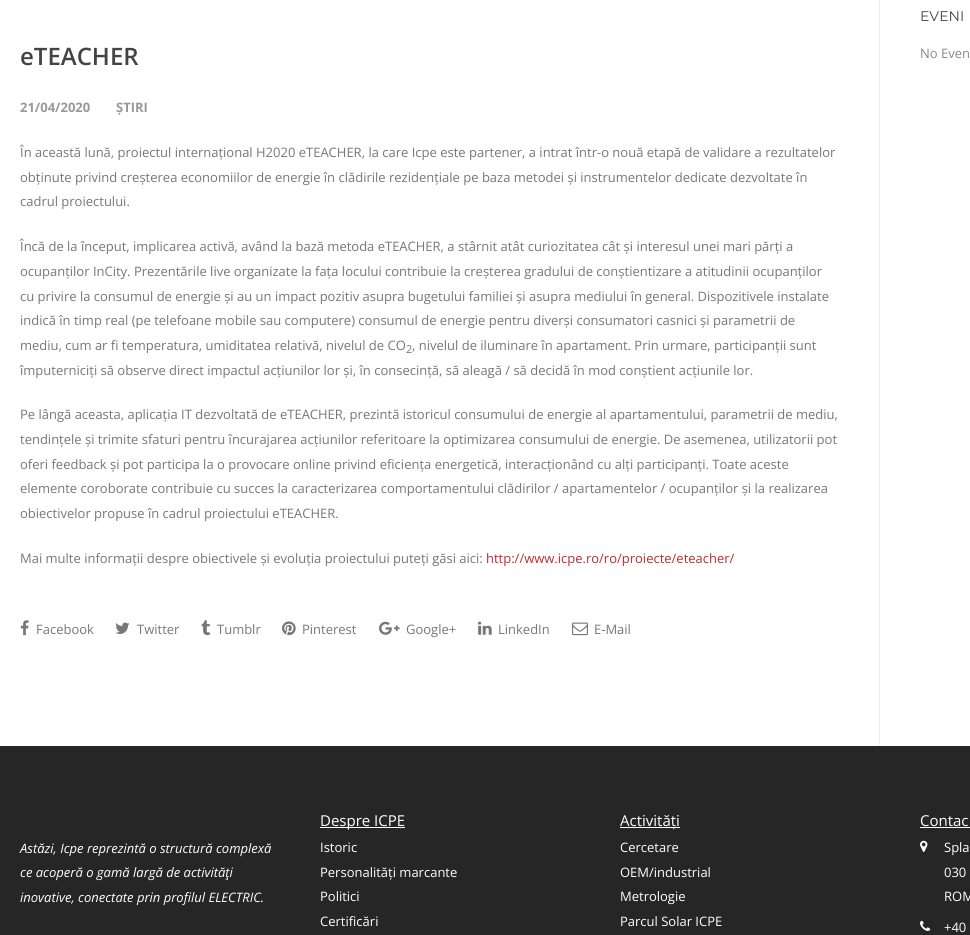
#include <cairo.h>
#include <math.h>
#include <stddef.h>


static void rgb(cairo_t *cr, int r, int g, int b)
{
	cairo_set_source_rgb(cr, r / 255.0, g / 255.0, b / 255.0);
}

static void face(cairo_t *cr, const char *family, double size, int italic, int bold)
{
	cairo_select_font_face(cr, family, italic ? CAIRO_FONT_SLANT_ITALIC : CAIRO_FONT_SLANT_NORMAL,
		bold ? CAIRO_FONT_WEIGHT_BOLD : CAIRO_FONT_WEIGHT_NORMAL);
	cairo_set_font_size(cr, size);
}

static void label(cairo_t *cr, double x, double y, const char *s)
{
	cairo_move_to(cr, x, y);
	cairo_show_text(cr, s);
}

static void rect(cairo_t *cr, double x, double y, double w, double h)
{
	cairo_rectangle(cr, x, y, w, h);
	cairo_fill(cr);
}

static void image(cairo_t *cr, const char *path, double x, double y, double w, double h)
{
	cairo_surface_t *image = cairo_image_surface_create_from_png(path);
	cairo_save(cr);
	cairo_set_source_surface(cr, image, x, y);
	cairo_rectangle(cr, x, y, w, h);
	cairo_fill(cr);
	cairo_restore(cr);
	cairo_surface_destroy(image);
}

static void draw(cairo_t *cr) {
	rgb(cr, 255, 255, 255);
	cairo_paint(cr);
	face(cr, "Montserrat", 14, 0, 0);
	rgb(cr, 68, 68, 68);
	label(cr, 920, 21, "EVENI");
	face(cr, "Open Sans", 13, 0, 0);
	rgb(cr, 136, 136, 136);
	label(cr, 920, 58, "No Even");
	rgb(cr, 239, 239, 239);
	rect(cr, 879, 0, 1, 746);
	face(cr, "Open Sans SemiBold", 24, 0, 0);
	rgb(cr, 68, 68, 68);
	label(cr, 20, 65, "eTEACHER");
	face(cr, "Open Sans", 13, 0, 1);
	rgb(cr, 153, 153, 153);
	label(cr, 20, 112, "21/04/2020");
	label(cr, 116, 112, "ȘTIRI");
	face(cr, "Open Sans", 13, 0, 0);
	rgb(cr, 119, 119, 119);
	label(cr, 20, 157, "În această lună, proiectul internațional H2020 eTEACHER, la care Icpe este partener, a intrat într-o nouă etapă de validare a rezultatelor");
	label(cr, 20, 182, "obținute privind creșterea economiilor de energie în clădirile rezidențiale pe baza metodei și instrumentelor dedicate dezvoltate în");
	label(cr, 20, 206, "cadrul proiectului.");
	label(cr, 20, 251, "Încă de la început, implicarea activă, având la bază metoda eTEACHER, a stârnit atât curiozitatea cât și interesul unei mari părți a");
	label(cr, 20, 276, "ocupanților InCity. Prezentările live organizate la fața locului contribuie la creșterea gradului de conștientizare a atitudinii ocupanților");
	label(cr, 20, 301, "cu privire la consumul de energie și au un impact pozitiv asupra bugetului familiei și asupra mediului în general. Dispozitivele instalate");
	label(cr, 20, 325, "indică în timp real (pe telefoane mobile sau computere) consumul de energie pentru diverși consumatori casnici și parametrii de");
	label(cr, 20, 350, "mediu, cum ar fi temperatura, umiditatea relativă, nivelul de CO");
	face(cr, "Open Sans", 11, 0, 0);
	label(cr, 406, 353, "2");
	face(cr, "Open Sans", 13, 0, 0);
	label(cr, 412, 350, ", nivelul de iluminare în apartament. Prin urmare, participanții sunt");
	label(cr, 20, 375, "împuterniciți să observe direct impactul acțiunilor lor și, în consecință, să aleagă / să decidă în mod conștient acțiunile lor.");
	label(cr, 20, 419, "Pe lângă aceasta, aplicația IT dezvoltată de eTEACHER, prezintă istoricul consumului de energie al apartamentului, parametrii de mediu,");
	label(cr, 20, 444, "tendințele și trimite sfaturi pentru încurajarea acțiunilor referitoare la optimizarea consumului de energie. De asemenea, utilizatorii pot");
	label(cr, 20, 469, "oferi feedback și pot participa la o provocare online privind eficiența energetică, interacționând cu alți participanți. Toate aceste");
	label(cr, 20, 493, "elemente coroborate contribuie cu succes la caracterizarea comportamentului clădirilor / apartamentelor / ocupanților și la realizarea");
	label(cr, 20, 518, "obiectivelor propuse în cadrul proiectului eTEACHER.");
	label(cr, 20, 563, "Mai multe informații despre obiectivele și evoluția proiectului puteți găsi aici:");
	rgb(cr, 185, 46, 49);
	label(cr, 486, 563, "http://www.icpe.ro/ro/proiecte/eteacher/");
	image(cr, "image0.png", 20, 620, 9, 16);
	rgb(cr, 119, 119, 119);
	label(cr, 36, 634, "Facebook");
	image(cr, "image1.png", 115, 622, 15, 12);
	label(cr, 137, 634, "Twitter");
	image(cr, "image2.png", 201, 620, 10, 16);
	label(cr, 217, 634, "Tumblr");
	image(cr, "image3.png", 282, 621, 14, 15);
	label(cr, 302, 634, "Pinterest");
	image(cr, "image4.png", 379, 621, 21, 14);
	label(cr, 406, 634, "Google+");
	image(cr, "image5.png", 478, 621, 14, 14);
	label(cr, 498, 634, "LinkedIn");
	image(cr, "image6.png", 572, 622, 16, 14);
	label(cr, 594, 634, "E-Mail");
	rgb(cr, 38, 38, 38);
	rect(cr, 0, 746, 970, 189);
	face(cr, "Open Sans", 13, 1, 0);
	rgb(cr, 255, 255, 255);
	label(cr, 20, 853, "Astăzi, Icpe reprezintă o structură complexă");
	label(cr, 20, 877, "ce acoperă o gamă largă de activităţi");
	label(cr, 20, 902, "inovative, conectate prin profilul ELECTRIC.");
	rect(cr, 320, 827, 85, 1);
	face(cr, "Open Sans", 15, 0, 0);
	label(cr, 320, 826, "Despre ICPE");
	face(cr, "Open Sans", 13, 0, 0);
	label(cr, 320, 852, "Istoric");
	label(cr, 320, 877, "Personalități marcante");
	label(cr, 320, 901, "Politici");
	label(cr, 320, 926, "Certificări");
	rect(cr, 620, 827, 60, 1);
	face(cr, "Open Sans", 15, 0, 0);
	label(cr, 620, 826, "Activități");
	face(cr, "Open Sans", 13, 0, 0);
	label(cr, 620, 852, "Cercetare");
	label(cr, 620, 877, "OEM/industrial");
	label(cr, 620, 901, "Metrologie");
	label(cr, 620, 926, "Parcul Solar ICPE");
	face(cr, "Open Sans", 15, 0, 0);
	label(cr, 920, 826, "Contac");
	rect(cr, 920, 827, 50, 1);
	image(cr, "image7.png", 920, 840, 8, 12);
	face(cr, "Open Sans", 13, 0, 0);
	label(cr, 944, 852, "Spla");
	label(cr, 944, 877, "030");
	label(cr, 944, 901, "ROM");
	image(cr, "image8.png", 920, 920, 11, 11);
	label(cr, 944, 932, "+40");
}

int main(void) {
	cairo_surface_t *surface = cairo_image_surface_create(CAIRO_FORMAT_RGB24, 970, 935);
	cairo_t *cr = cairo_create(surface);
	cairo_font_options_t *options = cairo_font_options_create();
	cairo_font_options_set_hint_metrics(options, CAIRO_HINT_METRICS_OFF);
	cairo_font_options_set_hint_style(options, CAIRO_HINT_STYLE_NONE);
	cairo_set_font_options(cr, options);
	cairo_set_miter_limit(cr, 4);
	draw(cr);
	cairo_surface_write_to_png(surface, "render.png");
	cairo_font_options_destroy(options);
	cairo_destroy(cr);
	cairo_surface_destroy(surface);
	return 0;
}
